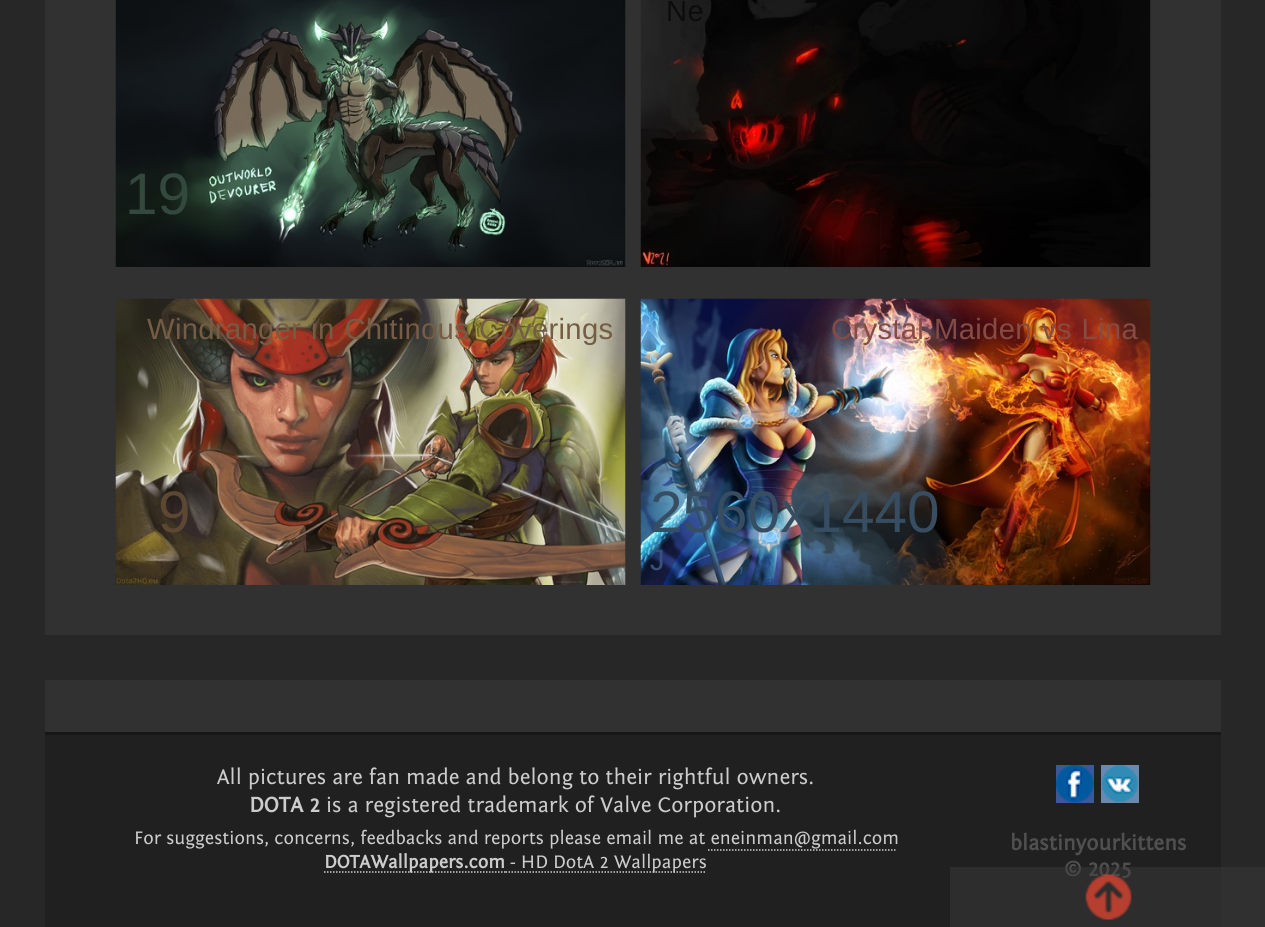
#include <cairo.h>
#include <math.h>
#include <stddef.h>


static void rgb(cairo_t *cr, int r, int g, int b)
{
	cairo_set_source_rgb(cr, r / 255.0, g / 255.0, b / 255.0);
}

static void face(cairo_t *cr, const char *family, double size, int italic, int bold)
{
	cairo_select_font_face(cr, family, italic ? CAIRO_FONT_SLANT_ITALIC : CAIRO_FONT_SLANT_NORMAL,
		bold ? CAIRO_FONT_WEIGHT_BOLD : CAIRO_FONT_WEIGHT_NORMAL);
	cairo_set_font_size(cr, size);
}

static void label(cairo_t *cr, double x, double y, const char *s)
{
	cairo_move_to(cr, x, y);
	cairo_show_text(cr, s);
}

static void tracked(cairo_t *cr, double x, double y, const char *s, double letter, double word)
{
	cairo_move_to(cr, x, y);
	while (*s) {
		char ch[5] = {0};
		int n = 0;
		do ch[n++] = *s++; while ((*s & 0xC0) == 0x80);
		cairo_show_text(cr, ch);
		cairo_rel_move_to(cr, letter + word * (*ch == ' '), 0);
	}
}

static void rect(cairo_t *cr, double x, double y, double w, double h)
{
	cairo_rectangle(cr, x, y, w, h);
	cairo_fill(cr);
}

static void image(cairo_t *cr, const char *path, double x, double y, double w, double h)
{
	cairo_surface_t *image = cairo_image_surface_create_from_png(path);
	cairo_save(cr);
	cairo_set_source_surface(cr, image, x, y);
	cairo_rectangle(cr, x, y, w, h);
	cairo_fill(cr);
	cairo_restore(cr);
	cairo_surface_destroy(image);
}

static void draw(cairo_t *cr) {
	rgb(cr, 39, 39, 39);
	cairo_paint(cr);
	rgb(cr, 49, 49, 49);
	rect(cr, 45, 0, 1176, 732);
	image(cr, "image0.png", 640, 0, 511, 267);
	face(cr, "Liberation Sans", 29.25, 0, 0);
	rgb(cr, 13, 12, 13);
	tracked(cr, 666, 21, "Ne", 0.3, 1.5);
	image(cr, "image1.png", 115, 0, 511, 267);
	face(cr, "Liberation Sans", 58.5, 0, 0);
	rgb(cr, 52, 73, 62);
	label(cr, 125, 214, "19");
	image(cr, "image2.png", 115, 298, 511, 287);
	face(cr, "Liberation Sans", 29.25, 0, 0);
	rgb(cr, 116, 92, 69);
	tracked(cr, 147, 339, "Windranger in Chitinous Coverings", 0.3, 1.5);
	face(cr, "Liberation Sans", 58.5, 0, 0);
	rgb(cr, 92, 71, 51);
	label(cr, 158, 532, "9");
	image(cr, "image3.png", 640, 298, 511, 287);
	face(cr, "Liberation Sans", 29.25, 0, 0);
	rgb(cr, 134, 75, 67);
	tracked(cr, 831, 339, "Crystal Maiden vs Lina", 0.3, 1.5);
	face(cr, "Liberation Sans", 58.5, 0, 0);
	rgb(cr, 55, 77, 97);
	label(cr, 650, 532, "2560x1440");
	face(cr, "Liberation Sans", 29.25, 0, 0);
	rgb(cr, 57, 81, 119);
	label(cr, 650, 570, "J");
	label(cr, 737, 570, ",");
	rgb(cr, 39, 39, 39);
	rect(cr, 45, 635, 1176, 45);
	rgb(cr, 32, 32, 32);
	rect(cr, 45, 735, 1176, 192);
	rgb(cr, 23, 23, 23);
	rect(cr, 45, 732, 1176, 3);
	face(cr, "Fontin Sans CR", 22.1, 0, 0);
	rgb(cr, 204, 204, 204);
	label(cr, 217, 784, "All pictures are fan made and belong to their rightful owners.");
	face(cr, "Fontin Sans CR", 22.1, 0, 1);
	label(cr, 249, 812, "DOTA 2");
	face(cr, "Fontin Sans CR", 22.1, 0, 0);
	label(cr, 326, 812, "is a registered trademark of Valve Corporation.");
	face(cr, "Fontin Sans CR", 19, 0, 0);
	label(cr, 134, 844, "For suggestions, concerns, feedbacks and reports please email me at eneinman@gmail.com");
	cairo_new_path(cr);
	cairo_move_to(cr, 708, 850);
	cairo_line_to(cr, 897, 850);
	cairo_set_line_width(cr, 1.5);
	cairo_set_dash(cr, (double[]){1.5, 1.5}, 2, 0);
	cairo_stroke(cr);
	cairo_new_path(cr);
	cairo_move_to(cr, 324, 872);
	cairo_line_to(cr, 505.5, 872);
	cairo_stroke(cr);
	face(cr, "Fontin Sans CR", 19, 0, 1);
	label(cr, 324, 868, "DOTAWallpapers.com");
	cairo_new_path(cr);
	cairo_move_to(cr, 505.5, 872);
	cairo_line_to(cr, 706.5, 872);
	cairo_stroke(cr);
	face(cr, "Fontin Sans CR", 19, 0, 0);
	label(cr, 510, 868, "- HD DotA 2 Wallpapers");
	rgb(cr, 59, 89, 152);
	rect(cr, 1056, 765, 38, 38);
	image(cr, "image4.png", 1056, 765, 38, 38);
	rgb(cr, 105, 137, 175);
	rect(cr, 1101, 765, 38, 38);
	image(cr, "image5.png", 1101, 765, 38, 38);
	face(cr, "Fontin Sans CR", 22.1, 0, 1);
	rgb(cr, 80, 80, 80);
	label(cr, 1010, 850, "blastinyourkittens");
	label(cr, 1064, 876, "© 2025");
	cairo_set_source_rgba(cr, 0.235, 0.235, 0.235, 0.45);
	rect(cr, 950, 867, 315, 60);
	image(cr, "image6.png", 1085, 874, 47, 46);
}

int main(void) {
	cairo_surface_t *surface = cairo_image_surface_create(CAIRO_FORMAT_RGB24, 1265, 927);
	cairo_t *cr = cairo_create(surface);
	cairo_font_options_t *options = cairo_font_options_create();
	cairo_font_options_set_hint_metrics(options, CAIRO_HINT_METRICS_OFF);
	cairo_font_options_set_hint_style(options, CAIRO_HINT_STYLE_NONE);
	cairo_set_font_options(cr, options);
	cairo_set_miter_limit(cr, 4);
	draw(cr);
	cairo_surface_write_to_png(surface, "render.png");
	cairo_font_options_destroy(options);
	cairo_destroy(cr);
	cairo_surface_destroy(surface);
	return 0;
}
